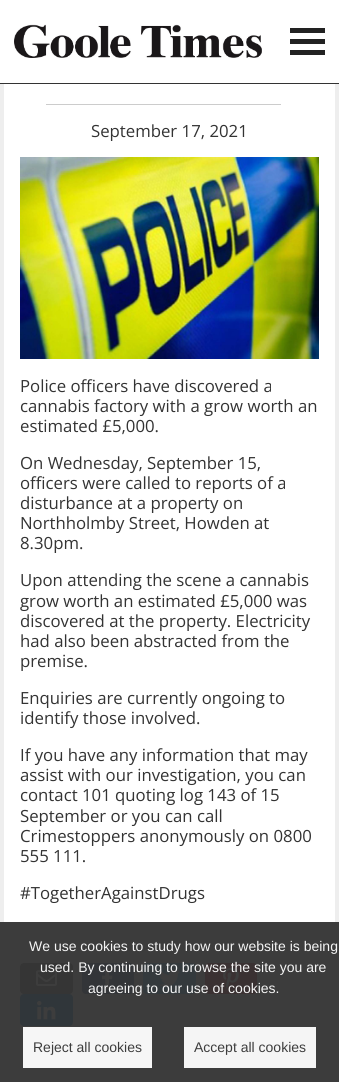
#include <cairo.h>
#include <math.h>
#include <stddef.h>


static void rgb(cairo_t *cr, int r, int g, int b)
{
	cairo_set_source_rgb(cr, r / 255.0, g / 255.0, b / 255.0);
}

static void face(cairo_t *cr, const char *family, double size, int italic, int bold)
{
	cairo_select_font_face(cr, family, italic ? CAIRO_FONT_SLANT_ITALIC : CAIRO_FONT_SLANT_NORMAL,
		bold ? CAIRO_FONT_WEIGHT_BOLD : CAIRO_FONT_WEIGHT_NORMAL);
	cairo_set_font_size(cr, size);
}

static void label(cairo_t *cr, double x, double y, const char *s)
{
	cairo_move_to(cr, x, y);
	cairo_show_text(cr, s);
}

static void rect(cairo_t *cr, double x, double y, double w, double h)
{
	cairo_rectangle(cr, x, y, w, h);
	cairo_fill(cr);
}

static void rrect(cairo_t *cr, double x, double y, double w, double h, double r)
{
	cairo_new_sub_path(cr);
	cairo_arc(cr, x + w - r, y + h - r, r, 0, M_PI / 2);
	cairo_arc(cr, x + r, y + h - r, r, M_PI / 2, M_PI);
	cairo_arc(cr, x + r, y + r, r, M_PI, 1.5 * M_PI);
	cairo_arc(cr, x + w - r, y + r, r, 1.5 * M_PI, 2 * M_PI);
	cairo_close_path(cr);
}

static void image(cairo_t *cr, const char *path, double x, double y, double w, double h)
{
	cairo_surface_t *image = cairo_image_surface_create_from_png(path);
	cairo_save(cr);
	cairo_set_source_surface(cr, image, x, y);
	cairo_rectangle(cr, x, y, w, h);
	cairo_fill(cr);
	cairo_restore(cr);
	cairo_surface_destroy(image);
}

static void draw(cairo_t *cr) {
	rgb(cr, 238, 238, 238);
	cairo_paint(cr);
	rgb(cr, 60, 60, 60);
	rect(cr, 0, 922, 339, 160);
	rgb(cr, 255, 255, 255);
	rect(cr, 0, 0, 339, 83);
	rgb(cr, 51, 51, 51);
	rect(cr, 0, 83, 339, 1);
	image(cr, "image0.png", 14, 24, 248, 34);
	rgb(cr, 34, 34, 34);
	rect(cr, 290, 28, 35, 5);
	rect(cr, 290, 39, 35, 5);
	rect(cr, 290, 50, 35, 5);
	rgb(cr, 255, 255, 255);
	rect(cr, 4, 84, 331, 838);
	rgb(cr, 204, 204, 204);
	rect(cr, 46, 104, 235, 1);
	face(cr, "Open Sans", 16.75, 0, 0);
	rgb(cr, 51, 51, 51);
	label(cr, 91, 137, "September 17, 2021");
	image(cr, "image1.png", 20, 157, 299, 202);
	label(cr, 20, 392, "Police officers have discovered a");
	label(cr, 20, 412, "cannabis factory with a grow worth an");
	label(cr, 20, 432, "estimated £5,000.");
	label(cr, 20, 469, "On Wednesday, September 15,");
	label(cr, 20, 489, "officers were called to reports of a");
	label(cr, 20, 509, "disturbance at a property on");
	label(cr, 20, 529, "Northholmby Street, Howden at");
	label(cr, 20, 549, "8.30pm.");
	label(cr, 20, 586, "Upon attending the scene a cannabis");
	label(cr, 20, 607, "grow worth an estimated £5,000 was");
	label(cr, 20, 627, "discovered at the property. Electricity");
	label(cr, 20, 647, "had also been abstracted from the");
	label(cr, 20, 667, "premise.");
	label(cr, 20, 704, "Enquiries are currently ongoing to");
	label(cr, 20, 724, "identify those involved.");
	label(cr, 20, 761, "If you have any information that may");
	label(cr, 20, 781, "assist with our investigation, you can");
	label(cr, 20, 801, "contact 101 quoting log 143 of 15");
	label(cr, 20, 822, "September or you can call");
	label(cr, 20, 842, "Crimestoppers anonymously on 0800");
	label(cr, 20, 862, "555 111.");
	label(cr, 20, 899, "#TogetherAgainstDrugs");
	rgb(cr, 53, 53, 53);
	rrect(cr, 20, 963, 53, 31, 4);
	cairo_fill(cr);
	image(cr, "image2.png", 36, 970, 21, 16);
	rgb(cr, 51, 53, 56);
	rrect(cr, 82, 963, 52, 31, 4);
	cairo_fill(cr);
	image(cr, "image3.png", 102, 967, 11, 22);
	rgb(cr, 52, 58, 61);
	rrect(cr, 143, 963, 53, 31, 4);
	cairo_fill(cr);
	image(cr, "image4.png", 159, 969, 21, 18);
	rgb(cr, 58, 49, 50);
	rrect(cr, 205, 963, 52, 31, 4);
	cairo_fill(cr);
	image(cr, "image5.png", 223, 967, 16, 22);
	rgb(cr, 48, 54, 58);
	rrect(cr, 20, 994, 53, 32, 4);
	cairo_fill(cr);
	image(cr, "image6.png", 37, 1001, 19, 19);
	face(cr, "Liberation Sans", 14, 0, 0);
	rgb(cr, 245, 245, 245);
	label(cr, 29, 951, "We use cookies to study how our website is being");
	label(cr, 40, 972, "used. By continuing to browse the site you are");
	label(cr, 88, 993, "agreeing to our use of cookies.");
	cairo_set_source_rgba(cr, 1, 1, 1, 0.95);
	rect(cr, 23, 1027, 129, 41);
	rgb(cr, 61, 61, 61);
	label(cr, 33, 1052, "Reject all cookies");
	rgb(cr, 245, 245, 245);
	rect(cr, 184, 1027, 132, 41);
	rgb(cr, 61, 61, 61);
	label(cr, 194, 1052, "Accept all cookies");
}

int main(void) {
	cairo_surface_t *surface = cairo_image_surface_create(CAIRO_FORMAT_RGB24, 339, 1082);
	cairo_t *cr = cairo_create(surface);
	cairo_font_options_t *options = cairo_font_options_create();
	cairo_font_options_set_hint_metrics(options, CAIRO_HINT_METRICS_OFF);
	cairo_font_options_set_hint_style(options, CAIRO_HINT_STYLE_NONE);
	cairo_set_font_options(cr, options);
	cairo_set_miter_limit(cr, 4);
	draw(cr);
	cairo_surface_write_to_png(surface, "render.png");
	cairo_font_options_destroy(options);
	cairo_destroy(cr);
	cairo_surface_destroy(surface);
	return 0;
}
